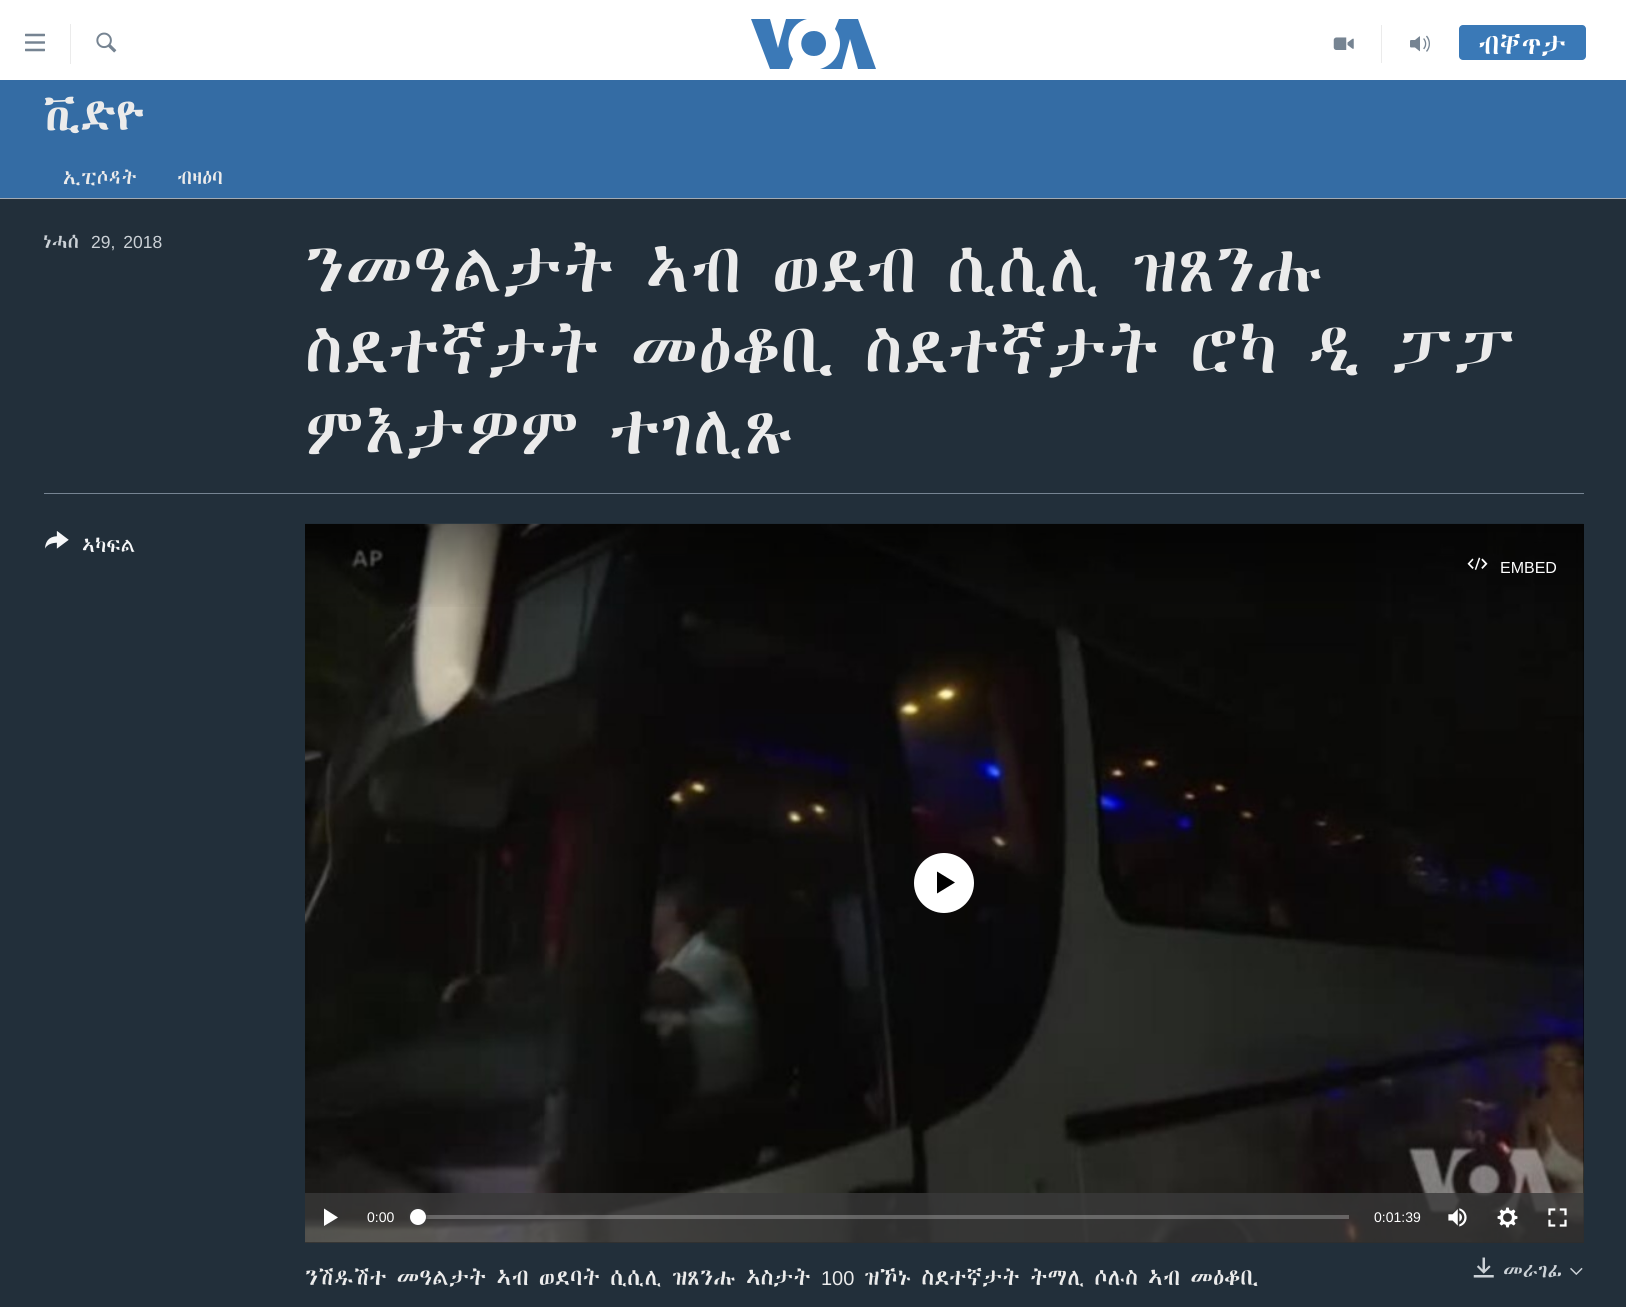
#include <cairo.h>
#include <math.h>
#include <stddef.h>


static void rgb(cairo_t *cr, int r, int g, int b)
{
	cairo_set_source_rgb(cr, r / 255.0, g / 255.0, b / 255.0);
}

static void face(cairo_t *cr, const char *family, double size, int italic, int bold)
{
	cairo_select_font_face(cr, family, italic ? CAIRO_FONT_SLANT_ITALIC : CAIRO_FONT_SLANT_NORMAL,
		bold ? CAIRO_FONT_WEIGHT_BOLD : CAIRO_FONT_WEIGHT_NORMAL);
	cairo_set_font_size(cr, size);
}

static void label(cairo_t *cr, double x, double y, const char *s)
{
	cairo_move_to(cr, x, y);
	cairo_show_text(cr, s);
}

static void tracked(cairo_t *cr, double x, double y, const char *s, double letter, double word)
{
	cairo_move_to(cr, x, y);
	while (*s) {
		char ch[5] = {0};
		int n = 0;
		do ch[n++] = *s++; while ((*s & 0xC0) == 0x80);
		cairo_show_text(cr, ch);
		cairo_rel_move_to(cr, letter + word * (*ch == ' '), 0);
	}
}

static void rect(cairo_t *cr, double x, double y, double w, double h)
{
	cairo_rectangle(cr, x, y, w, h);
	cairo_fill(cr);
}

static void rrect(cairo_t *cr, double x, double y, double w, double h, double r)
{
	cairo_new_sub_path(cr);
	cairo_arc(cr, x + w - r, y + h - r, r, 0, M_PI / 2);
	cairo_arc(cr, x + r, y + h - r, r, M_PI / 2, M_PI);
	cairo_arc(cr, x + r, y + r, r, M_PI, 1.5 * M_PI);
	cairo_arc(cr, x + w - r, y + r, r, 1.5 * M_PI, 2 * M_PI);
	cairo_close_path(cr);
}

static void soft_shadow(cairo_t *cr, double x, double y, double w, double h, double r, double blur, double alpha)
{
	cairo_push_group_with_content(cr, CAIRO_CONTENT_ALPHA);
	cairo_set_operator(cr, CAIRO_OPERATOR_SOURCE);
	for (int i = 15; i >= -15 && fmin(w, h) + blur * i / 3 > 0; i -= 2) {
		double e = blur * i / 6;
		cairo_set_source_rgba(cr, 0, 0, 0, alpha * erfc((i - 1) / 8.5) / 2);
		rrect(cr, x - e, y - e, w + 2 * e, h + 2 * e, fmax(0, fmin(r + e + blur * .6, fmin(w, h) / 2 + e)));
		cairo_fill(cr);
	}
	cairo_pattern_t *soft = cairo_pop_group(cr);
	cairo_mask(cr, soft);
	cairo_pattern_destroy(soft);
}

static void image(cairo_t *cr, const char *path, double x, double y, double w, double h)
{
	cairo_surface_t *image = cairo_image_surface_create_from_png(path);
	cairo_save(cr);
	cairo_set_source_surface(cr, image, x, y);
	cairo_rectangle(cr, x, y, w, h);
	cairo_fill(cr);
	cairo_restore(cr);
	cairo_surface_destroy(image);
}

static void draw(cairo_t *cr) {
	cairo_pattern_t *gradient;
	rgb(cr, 255, 255, 255);
	cairo_paint(cr);
	image(cr, "image0.png", 25, 33, 20, 19);
	rgb(cr, 235, 235, 235);
	rect(cr, 70, 24, 1, 40);
	image(cr, "image1.png", 96, 32, 21, 21);
	rgb(cr, 59, 121, 183);
	cairo_new_path(cr);
	cairo_move_to(cr, 793, 59);
	cairo_line_to(cr, 789, 69);
	cairo_line_to(cr, 770, 69);
	cairo_line_to(cr, 751, 19);
	cairo_line_to(cr, 770, 19);
	cairo_line_to(cr, 778, 48);
	cairo_line_to(cr, 786, 19);
	cairo_line_to(cr, 807, 19);
	cairo_curve_to(cr, 790, 23, 783, 44, 793, 59);
	cairo_close_path(cr);
	cairo_move_to(cr, 814, 31);
	cairo_curve_to(cr, 797, 31, 797, 56, 814, 56);
	cairo_curve_to(cr, 830, 56, 830, 31, 814, 31);
	cairo_close_path(cr);
	cairo_move_to(cr, 840, 44);
	cairo_curve_to(cr, 840, 56, 831, 66, 820, 69);
	cairo_line_to(cr, 842, 69);
	cairo_line_to(cr, 850, 39);
	cairo_line_to(cr, 858, 69);
	cairo_line_to(cr, 876, 69);
	cairo_line_to(cr, 858, 19);
	cairo_line_to(cr, 839, 19);
	cairo_line_to(cr, 835, 29);
	cairo_curve_to(cr, 838, 33, 840, 38, 840, 44);
	cairo_close_path(cr);
	cairo_fill(cr);
	rgb(cr, 235, 235, 235);
	rect(cr, 1381, 25, 1, 38);
	image(cr, "image2.png", 1333, 37, 21, 13);
	image(cr, "image3.png", 1410, 35, 20, 17);
	rgb(cr, 58, 121, 183);
	rrect(cr, 1459, 25, 127, 35, 4);
	cairo_fill(cr);
	face(cr, "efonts", 25, 0, 0);
	rgb(cr, 255, 255, 255);
	label(cr, 1478, 54, "ብቐጥታ");
	rgb(cr, 52, 108, 164);
	rect(cr, 0, 80, 1626, 118);
	face(cr, "efonts", 38, 0, 1);
	rgb(cr, 235, 235, 235);
	label(cr, 43, 130, "ቪድዮ");
	face(cr, "efonts", 17.5, 0, 0);
	label(cr, 63, 184, "ኢፒሶዳት");
	label(cr, 177, 184, "ብዛዕባ");
	rgb(cr, 34, 47, 58);
	rect(cr, 0, 199, 1626, 1108);
	rgb(cr, 161, 170, 180);
	rect(cr, 0, 198, 1626, 1);
	rgb(cr, 203, 209, 214);
	label(cr, 43, 248, "ነሓሰ");
	face(cr, "Liberation Sans", 17.5, 0, 0);
	tracked(cr, 91, 248, "29, 2018", 0, 3);
	face(cr, "efonts", 60, 0, 0);
	rgb(cr, 235, 235, 235);
	label(cr, 305, 292, "ንመዓልታት ኣብ ወደብ ሲሲሊ ዝጸንሑ");
	label(cr, 305, 373, "ስደተኛታት መዕቆቢ ስደተኛታት ሮካ ዲ ፓፓ");
	label(cr, 305, 454, "ምእታዎም ተገሊጹ");
	rgb(cr, 118, 132, 146);
	rect(cr, 44, 493, 1540, 1);
	image(cr, "image4.png", 45, 531, 24, 18);
	face(cr, "efonts", 17.5, 0, 0);
	rgb(cr, 246, 247, 248);
	label(cr, 82, 552, "ኣካፍል");
	rgb(cr, 0, 0, 0);
	rect(cr, 305, 524, 1279, 719);
	image(cr, "image5.png", 305, 523, 1279, 720);
	gradient = cairo_pattern_create_linear(944, 524, 944, 611);
	cairo_pattern_add_color_stop_rgba(gradient, 0, 0, 0, 0, 0.5);
	cairo_pattern_add_color_stop_rgba(gradient, 1, 0, 0, 0, 0);
	cairo_set_source(cr, gradient);
	cairo_pattern_destroy(gradient);
	rect(cr, 305, 524, 1278, 83);
	image(cr, "image6.png", 1467, 557, 21, 13);
	face(cr, "Liberation Sans", 16, 0, 0);
	rgb(cr, 255, 255, 255);
	label(cr, 1500, 573, "EMBED");
	cairo_new_path(cr);
	cairo_arc(cr, 944, 883, 30, 0, 2 * M_PI);
	cairo_fill(cr);
	rgb(cr, 0, 0, 0);
	cairo_new_path(cr);
	cairo_move_to(cr, 937, 893.5);
	cairo_line_to(cr, 955, 882.5);
	cairo_line_to(cr, 937, 871.5);
	cairo_close_path(cr);
	cairo_fill(cr);
	cairo_set_source_rgba(cr, 0.22, 0.22, 0.22, 0.8);
	rect(cr, 305, 1193, 1279, 50);
	rgb(cr, 255, 255, 255);
	cairo_new_path(cr);
	cairo_move_to(cr, 324, 1226);
	cairo_line_to(cr, 338, 1217.5);
	cairo_line_to(cr, 324, 1208.5);
	cairo_close_path(cr);
	cairo_fill(cr);
	face(cr, "Liberation Sans", 14, 0, 0);
	label(cr, 367, 1222, "0:00");
	cairo_set_source_rgba(cr, 1, 1, 1, 0.25);
	rect(cr, 419, 1215, 930, 4);
	rgb(cr, 65, 65, 68);
	soft_shadow(cr, 410, 1209, 16, 16, 8, 2, 1);
	rgb(cr, 255, 255, 255);
	cairo_arc(cr, 418, 1217, 8, 0, 2 * M_PI);
	cairo_fill(cr);
	label(cr, 1374, 1222, "0:01:39");
	image(cr, "image7.png", 1448, 1208, 19, 19);
	image(cr, "image8.png", 1497, 1207, 21, 21);
	image(cr, "image9.png", 1548, 1208, 19, 19);
	face(cr, "efonts", 20, 0, 0);
	rgb(cr, 235, 235, 235);
	label(cr, 305, 1285, "ንሽዱሽተ መዓልታት ኣብ ወደባት ሲሲሊ ዝጸንሑ ኣስታት");
	face(cr, "Liberation Sans", 20, 0, 0);
	label(cr, 821, 1285, "100");
	face(cr, "efonts", 20, 0, 0);
	label(cr, 864, 1285, "ዝኾኑ ስደተኛታት ትማሊ ሶሉስ ኣብ መዕቆቢ");
	image(cr, "image10.png", 1473, 1257, 21, 21);
	face(cr, "efonts", 17.5, 0, 0);
	rgb(cr, 203, 209, 214);
	label(cr, 1503, 1277, "መራገፊ");
	image(cr, "image11.png", 1570, 1267, 13, 8);
}

int main(void) {
	cairo_surface_t *surface = cairo_image_surface_create(CAIRO_FORMAT_RGB24, 1626, 1307);
	cairo_t *cr = cairo_create(surface);
	cairo_font_options_t *options = cairo_font_options_create();
	cairo_font_options_set_hint_metrics(options, CAIRO_HINT_METRICS_OFF);
	cairo_font_options_set_hint_style(options, CAIRO_HINT_STYLE_NONE);
	cairo_set_font_options(cr, options);
	cairo_set_miter_limit(cr, 4);
	draw(cr);
	cairo_surface_write_to_png(surface, "render.png");
	cairo_font_options_destroy(options);
	cairo_destroy(cr);
	cairo_surface_destroy(surface);
	return 0;
}
